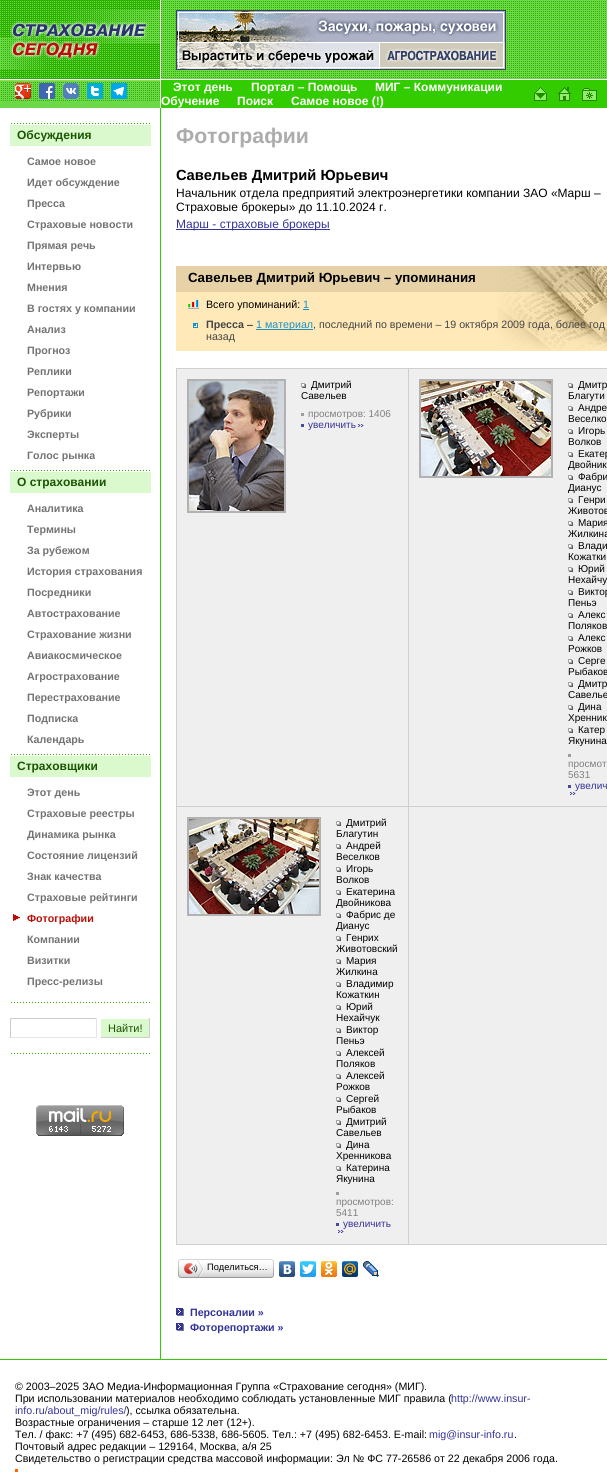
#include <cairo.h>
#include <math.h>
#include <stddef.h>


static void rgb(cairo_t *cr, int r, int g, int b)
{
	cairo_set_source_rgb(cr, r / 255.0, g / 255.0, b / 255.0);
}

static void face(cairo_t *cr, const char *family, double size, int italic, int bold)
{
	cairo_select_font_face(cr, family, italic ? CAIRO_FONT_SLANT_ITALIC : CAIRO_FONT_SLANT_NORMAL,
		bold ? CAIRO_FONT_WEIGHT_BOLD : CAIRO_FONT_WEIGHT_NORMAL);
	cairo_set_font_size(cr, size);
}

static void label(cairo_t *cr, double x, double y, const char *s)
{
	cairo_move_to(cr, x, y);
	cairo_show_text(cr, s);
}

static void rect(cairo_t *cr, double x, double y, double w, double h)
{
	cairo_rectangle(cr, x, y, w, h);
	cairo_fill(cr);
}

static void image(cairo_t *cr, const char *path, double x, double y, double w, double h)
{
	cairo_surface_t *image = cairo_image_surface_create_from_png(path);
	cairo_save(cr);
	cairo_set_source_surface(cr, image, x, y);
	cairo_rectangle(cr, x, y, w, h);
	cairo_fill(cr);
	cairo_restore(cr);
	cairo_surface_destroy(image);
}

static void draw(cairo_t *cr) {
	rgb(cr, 255, 255, 255);
	cairo_paint(cr);
	rgb(cr, 109, 217, 73);
	rect(cr, 0, 102, 160, 6);
	image(cr, "image0.png", 0, 0, 160, 47);
	image(cr, "image1.png", 0, 47, 160, 33);
	rgb(cr, 149, 216, 86);
	rect(cr, 0, 80, 160, 1);
	image(cr, "image2.png", 0, 81, 160, 21);
	image(cr, "image3.png", 15, 83, 16, 16);
	image(cr, "image4.png", 39, 83, 16, 16);
	image(cr, "image5.png", 63, 83, 16, 16);
	image(cr, "image6.png", 87, 83, 16, 16);
	image(cr, "image7.png", 111, 83, 16, 16);
	rgb(cr, 109, 217, 73);
	rect(cr, 161, 0, 446, 79);
	image(cr, "image8.png", 161, 1, 445, 77);
	image(cr, "image9.png", 176, 10, 330, 60);
	rgb(cr, 51, 204, 0);
	rect(cr, 161, 80, 446, 28);
	face(cr, "Liberation Sans", 12, 0, 1);
	rgb(cr, 255, 255, 255);
	label(cr, 173, 91, "Этот день");
	label(cr, 251, 91, "Портал – Помощь");
	label(cr, 375, 91, "МИГ – Коммуникации");
	label(cr, 161, 105, "Обучение");
	label(cr, 237, 105, "Поиск");
	label(cr, 291, 105, "Самое новое (!)");
	image(cr, "image10.png", 534, 87, 13, 14);
	image(cr, "image11.png", 558, 87, 13, 14);
	image(cr, "image12.png", 582, 88, 15, 13);
	image(cr, "image13.png", 10, 123, 141, 23);
	rgb(cr, 27, 85, 2);
	label(cr, 17, 139, "Обсуждения");
	face(cr, "Liberation Sans", 10.67, 0, 1);
	rgb(cr, 115, 115, 115);
	label(cr, 27, 165, "Самое новое");
	label(cr, 27, 186, "Идет обсуждение");
	label(cr, 27, 207, "Пресса");
	label(cr, 27, 228, "Страховые новости");
	label(cr, 27, 249, "Прямая речь");
	label(cr, 27, 270, "Интервью");
	label(cr, 27, 291, "Мнения");
	label(cr, 27, 312, "В гостях у компании");
	label(cr, 27, 333, "Анализ");
	label(cr, 27, 354, "Прогноз");
	label(cr, 27, 375, "Реплики");
	label(cr, 27, 396, "Репортажи");
	label(cr, 27, 417, "Рубрики");
	label(cr, 27, 438, "Эксперты");
	label(cr, 27, 459, "Голос рынка");
	image(cr, "image13.png", 10, 470, 141, 23);
	face(cr, "Liberation Sans", 12, 0, 1);
	rgb(cr, 27, 85, 2);
	label(cr, 17, 486, "О страховании");
	face(cr, "Liberation Sans", 10.67, 0, 1);
	rgb(cr, 115, 115, 115);
	label(cr, 27, 512, "Аналитика");
	label(cr, 27, 533, "Термины");
	label(cr, 27, 554, "За рубежом");
	label(cr, 27, 575, "История страхования");
	label(cr, 27, 596, "Посредники");
	label(cr, 27, 617, "Автострахование");
	label(cr, 27, 638, "Страхование жизни");
	label(cr, 27, 659, "Авиакосмическое");
	label(cr, 27, 680, "Агрострахование");
	label(cr, 27, 701, "Перестрахование");
	label(cr, 27, 722, "Подписка");
	label(cr, 27, 743, "Календарь");
	image(cr, "image13.png", 10, 754, 141, 23);
	face(cr, "Liberation Sans", 12, 0, 1);
	rgb(cr, 27, 85, 2);
	label(cr, 17, 770, "Страховщики");
	face(cr, "Liberation Sans", 10.67, 0, 1);
	rgb(cr, 115, 115, 115);
	label(cr, 27, 796, "Этот день");
	label(cr, 27, 817, "Страховые реестры");
	label(cr, 27, 838, "Динамика рынка");
	label(cr, 27, 859, "Состояние лицензий");
	label(cr, 27, 880, "Знак качества");
	label(cr, 27, 901, "Страховые рейтинги");
	image(cr, "image14.png", 13, 914, 7, 7);
	rgb(cr, 187, 14, 8);
	label(cr, 27, 922, "Фотографии");
	rgb(cr, 115, 115, 115);
	label(cr, 27, 943, "Компании");
	label(cr, 27, 964, "Визитки");
	label(cr, 27, 985, "Пресс-релизы");
	image(cr, "image15.png", 11, 1002, 139, 1);
	rgb(cr, 204, 204, 204);
	rect(cr, 10, 1018, 87, 1);
	rgb(cr, 229, 229, 229);
	rect(cr, 96, 1018, 1, 20);
	rect(cr, 10, 1037, 87, 1);
	rgb(cr, 204, 204, 204);
	rect(cr, 10, 1018, 1, 20);
	rgb(cr, 218, 249, 205);
	rect(cr, 101, 1019, 48, 18);
	rgb(cr, 204, 204, 204);
	rect(cr, 149, 1018, 1, 20);
	rect(cr, 100, 1037, 50, 1);
	rgb(cr, 255, 255, 255);
	rect(cr, 100, 1037, 1, 1);
	face(cr, "Liberation Sans", 11, 0, 0);
	rgb(cr, 27, 85, 2);
	label(cr, 108, 1032, "Найти!");
	image(cr, "image15.png", 11, 1053, 139, 1);
	image(cr, "image16.png", 36, 1105, 88, 31);
	rgb(cr, 51, 204, 0);
	rect(cr, 160, 108, 1, 1251);
	face(cr, "Liberation Sans", 21.25, 0, 1);
	rgb(cr, 172, 172, 172);
	label(cr, 176, 143, "Фотографии");
	face(cr, "Liberation Sans", 14.7, 0, 1);
	rgb(cr, 0, 0, 0);
	label(cr, 176, 180, "Савельев Дмитрий Юрьевич");
	face(cr, "Liberation Sans", 12, 0, 0);
	label(cr, 176, 197, "Начальник отдела предприятий электроэнергетики компании ЗАО «Марш –");
	label(cr, 176, 211, "Страховые брокеры» до 11.10.2024 г.");
	rgb(cr, 51, 51, 153);
	rect(cr, 176, 229, 154, 1);
	label(cr, 176, 228, "Марш - страховые брокеры");
	rgb(cr, 255, 233, 184);
	rect(cr, 176, 266, 321, 85);
	image(cr, "image17.png", 497, 266, 110, 85);
	cairo_set_source_rgba(cr, 0, 0, 0, 0.1);
	rect(cr, 176, 266, 431, 26);
	face(cr, "Liberation Sans", 13.3, 0, 1);
	rgb(cr, 0, 0, 0);
	label(cr, 188, 282, "Савельев Дмитрий Юрьевич – упоминания");
	image(cr, "image18.png", 188, 300, 11, 9);
	face(cr, "Liberation Sans", 10.67, 0, 0);
	label(cr, 206, 308, "Bсего упоминаний:");
	rgb(cr, 24, 144, 200);
	label(cr, 303, 308, "1");
	rect(cr, 303, 309, 6, 1);
	image(cr, "image19.png", 193, 323, 5, 5);
	face(cr, "Liberation Sans", 10.67, 0, 1);
	rgb(cr, 68, 68, 68);
	label(cr, 206, 328, "Пресса");
	face(cr, "Liberation Sans", 10.67, 0, 0);
	rgb(cr, 0, 0, 0);
	label(cr, 247, 328, "–");
	rgb(cr, 24, 144, 200);
	rect(cr, 256, 329, 57, 1);
	label(cr, 256, 328, "1 материал");
	rgb(cr, 68, 68, 68);
	label(cr, 313, 328, ", последний по времени – 19 октября 2009 года, более год");
	label(cr, 206, 340, "назад");
	rgb(cr, 207, 207, 207);
	rect(cr, 176, 368, 431, 877);
	rgb(cr, 239, 239, 239);
	rect(cr, 177, 369, 231, 437);
	rgb(cr, 178, 178, 178);
	rect(cr, 187, 379, 99, 134);
	image(cr, "image20.png", 189, 381, 95, 130);
	image(cr, "image21.png", 301, 383, 5, 5);
	face(cr, "Liberation Sans", 10, 0, 0);
	rgb(cr, 0, 0, 0);
	label(cr, 311, 388, "Дмитрий");
	label(cr, 301, 399, "Савельев");
	rgb(cr, 157, 157, 157);
	rect(cr, 301, 413, 3, 3);
	rgb(cr, 128, 128, 128);
	label(cr, 308, 417, "просмотров: 1406");
	rgb(cr, 51, 51, 153);
	label(cr, 308, 428, "увеличить");
	rgb(cr, 73, 73, 153);
	rect(cr, 301, 424, 3, 3);
	image(cr, "image22.png", 358, 424, 6, 3);
	rgb(cr, 239, 239, 239);
	rect(cr, 409, 369, 198, 437);
	rgb(cr, 178, 178, 178);
	rect(cr, 419, 379, 134, 99);
	image(cr, "image23.png", 421, 381, 130, 95);
	image(cr, "image21.png", 568, 383, 5, 5);
	rgb(cr, 0, 0, 0);
	label(cr, 578, 388, "Дмитр");
	label(cr, 568, 399, "Благути");
	image(cr, "image21.png", 568, 406, 5, 5);
	label(cr, 578, 411, "Андре");
	label(cr, 568, 422, "Веселко");
	image(cr, "image21.png", 568, 429, 5, 5);
	label(cr, 578, 434, "Игорь");
	label(cr, 568, 445, "Волков");
	image(cr, "image21.png", 568, 452, 5, 5);
	label(cr, 578, 457, "Екатер");
	label(cr, 568, 468, "Двойник");
	image(cr, "image21.png", 568, 475, 5, 5);
	label(cr, 578, 480, "Фабри");
	label(cr, 568, 491, "Дианус");
	image(cr, "image21.png", 568, 498, 5, 5);
	label(cr, 578, 503, "Генри");
	label(cr, 568, 514, "Животов");
	image(cr, "image21.png", 568, 521, 5, 5);
	label(cr, 578, 526, "Мария");
	label(cr, 568, 537, "Жилкина");
	image(cr, "image21.png", 568, 544, 5, 5);
	label(cr, 578, 549, "Влади");
	label(cr, 568, 560, "Кожатки");
	image(cr, "image21.png", 568, 567, 5, 5);
	label(cr, 578, 572, "Юрий");
	label(cr, 568, 583, "Нехайчу");
	image(cr, "image21.png", 568, 590, 5, 5);
	label(cr, 578, 595, "Виктор");
	label(cr, 568, 606, "Пеньэ");
	image(cr, "image21.png", 568, 613, 5, 5);
	label(cr, 578, 618, "Алекс");
	label(cr, 568, 629, "Поляков");
	image(cr, "image21.png", 568, 636, 5, 5);
	label(cr, 578, 641, "Алекс");
	label(cr, 568, 652, "Рожков");
	image(cr, "image21.png", 568, 659, 5, 5);
	label(cr, 578, 664, "Серге");
	label(cr, 568, 675, "Рыбаков");
	image(cr, "image21.png", 568, 682, 5, 5);
	label(cr, 578, 687, "Дмитр");
	label(cr, 568, 698, "Савелье");
	image(cr, "image21.png", 568, 705, 5, 5);
	label(cr, 578, 710, "Дина");
	label(cr, 568, 721, "Хренник");
	image(cr, "image21.png", 568, 728, 5, 5);
	label(cr, 578, 733, "Катер");
	label(cr, 568, 744, "Якунина");
	rgb(cr, 157, 157, 157);
	rect(cr, 568, 754, 3, 3);
	rgb(cr, 128, 128, 128);
	label(cr, 568, 767, "просмот");
	label(cr, 568, 778, "5631");
	rgb(cr, 51, 51, 153);
	label(cr, 575, 789, "увелич");
	rgb(cr, 73, 73, 153);
	rect(cr, 568, 785, 3, 3);
	image(cr, "image22.png", 570, 792, 6, 3);
	rgb(cr, 239, 239, 239);
	rect(cr, 177, 807, 231, 437);
	rgb(cr, 178, 178, 178);
	rect(cr, 187, 817, 134, 99);
	image(cr, "image24.png", 189, 819, 130, 95);
	image(cr, "image21.png", 336, 821, 5, 5);
	rgb(cr, 0, 0, 0);
	label(cr, 346, 826, "Дмитрий");
	label(cr, 336, 837, "Благутин");
	image(cr, "image21.png", 336, 844, 5, 5);
	label(cr, 346, 849, "Андрей");
	label(cr, 336, 860, "Веселков");
	image(cr, "image21.png", 336, 867, 5, 5);
	label(cr, 346, 872, "Игорь");
	label(cr, 336, 883, "Волков");
	image(cr, "image21.png", 336, 890, 5, 5);
	label(cr, 346, 895, "Екатерина");
	label(cr, 336, 906, "Двойникова");
	image(cr, "image21.png", 336, 913, 5, 5);
	label(cr, 346, 918, "Фабрис де");
	label(cr, 336, 929, "Дианус");
	image(cr, "image21.png", 336, 936, 5, 5);
	label(cr, 346, 941, "Генрих");
	label(cr, 336, 952, "Животовский");
	image(cr, "image21.png", 336, 959, 5, 5);
	label(cr, 346, 964, "Мария");
	label(cr, 336, 975, "Жилкина");
	image(cr, "image21.png", 336, 982, 5, 5);
	label(cr, 346, 987, "Владимир");
	label(cr, 336, 998, "Кожаткин");
	image(cr, "image21.png", 336, 1005, 5, 5);
	label(cr, 346, 1010, "Юрий");
	label(cr, 336, 1021, "Нехайчук");
	image(cr, "image21.png", 336, 1028, 5, 5);
	label(cr, 346, 1033, "Виктор");
	label(cr, 336, 1044, "Пеньэ");
	image(cr, "image21.png", 336, 1051, 5, 5);
	label(cr, 346, 1056, "Алексей");
	label(cr, 336, 1067, "Поляков");
	image(cr, "image21.png", 336, 1074, 5, 5);
	label(cr, 346, 1079, "Алексей");
	label(cr, 336, 1090, "Рожков");
	image(cr, "image21.png", 336, 1097, 5, 5);
	label(cr, 346, 1102, "Сергей");
	label(cr, 336, 1113, "Рыбаков");
	image(cr, "image21.png", 336, 1120, 5, 5);
	label(cr, 346, 1125, "Дмитрий");
	label(cr, 336, 1136, "Савельев");
	image(cr, "image21.png", 336, 1143, 5, 5);
	label(cr, 346, 1148, "Дина");
	label(cr, 336, 1159, "Хренникова");
	image(cr, "image21.png", 336, 1166, 5, 5);
	label(cr, 346, 1171, "Катерина");
	label(cr, 336, 1182, "Якунина");
	rgb(cr, 157, 157, 157);
	rect(cr, 336, 1192, 3, 3);
	rgb(cr, 128, 128, 128);
	label(cr, 336, 1205, "просмотров:");
	label(cr, 336, 1216, "5411");
	rgb(cr, 51, 51, 153);
	label(cr, 343, 1227, "увеличить");
	rgb(cr, 73, 73, 153);
	rect(cr, 336, 1223, 3, 3);
	image(cr, "image22.png", 338, 1230, 6, 3);
	rgb(cr, 239, 239, 239);
	rect(cr, 409, 807, 198, 437);
	image(cr, "image25.png", 181, 1259, 90, 19);
	image(cr, "image26.png", 178, 1259, 3, 19);
	image(cr, "image27.png", 184, 1260, 20, 17);
	face(cr, "Liberation Sans", 9.25, 0, 0);
	rgb(cr, 0, 0, 0);
	label(cr, 207, 1270, "Поделиться…");
	image(cr, "image28.png", 271, 1259, 3, 19);
	image(cr, "image29.png", 279, 1261, 16, 16);
	image(cr, "image30.png", 300, 1261, 16, 16);
	image(cr, "image31.png", 321, 1261, 16, 16);
	image(cr, "image32.png", 342, 1261, 16, 16);
	image(cr, "image33.png", 363, 1261, 16, 16);
	image(cr, "image34.png", 176, 1308, 8, 8);
	face(cr, "Liberation Sans", 10.67, 0, 1);
	rgb(cr, 51, 51, 153);
	label(cr, 190, 1316, "Персоналии »");
	image(cr, "image34.png", 176, 1323, 8, 8);
	label(cr, 190, 1331, "Фоторепортажи »");
	rgb(cr, 51, 204, 0);
	rect(cr, 0, 1359, 607, 1);
	face(cr, "Liberation Sans", 10.67, 0, 0);
	rgb(cr, 0, 0, 0);
	label(cr, 15, 1390, "© 2003–2025 ЗАО Медиа-Информационная Группа «Страхование сегодня» (МИГ).");
	label(cr, 15, 1402, "При использовании материалов необходимо соблюдать установленные МИГ правила (");
	rgb(cr, 51, 51, 153);
	label(cr, 451, 1402, "http://www.insur-");
	label(cr, 15, 1414, "info.ru/about_mig/rules/");
	rgb(cr, 0, 0, 0);
	label(cr, 126, 1414, "), ссылка обязательна.");
	label(cr, 15, 1426, "Возрастные ограничения – старше 12 лет (12+).");
	label(cr, 15, 1438, "Тел. / факс: +7 (495) 682-6453, 686-5338, 686-5605. Тел.: +7 (495) 682-6453. E-mail:");
	rgb(cr, 51, 51, 153);
	label(cr, 429, 1438, "mig@insur-info.ru");
	rgb(cr, 0, 0, 0);
	label(cr, 514, 1438, ".");
	label(cr, 15, 1450, "Почтовый адрес редакции – 129164, Москва, а/я 25");
	label(cr, 15, 1462, "Свидетельство о регистрации средства массовой информации: Эл № ФС 77-26586 от 22 декабря 2006 года.");
	rgb(cr, 255, 102, 0);
	rect(cr, 15, 1469, 3, 3);
}

int main(void) {
	cairo_surface_t *surface = cairo_image_surface_create(CAIRO_FORMAT_RGB24, 607, 1472);
	cairo_t *cr = cairo_create(surface);
	cairo_font_options_t *options = cairo_font_options_create();
	cairo_font_options_set_hint_metrics(options, CAIRO_HINT_METRICS_OFF);
	cairo_font_options_set_hint_style(options, CAIRO_HINT_STYLE_NONE);
	cairo_set_font_options(cr, options);
	cairo_set_miter_limit(cr, 4);
	draw(cr);
	cairo_surface_write_to_png(surface, "render.png");
	cairo_font_options_destroy(options);
	cairo_destroy(cr);
	cairo_surface_destroy(surface);
	return 0;
}
